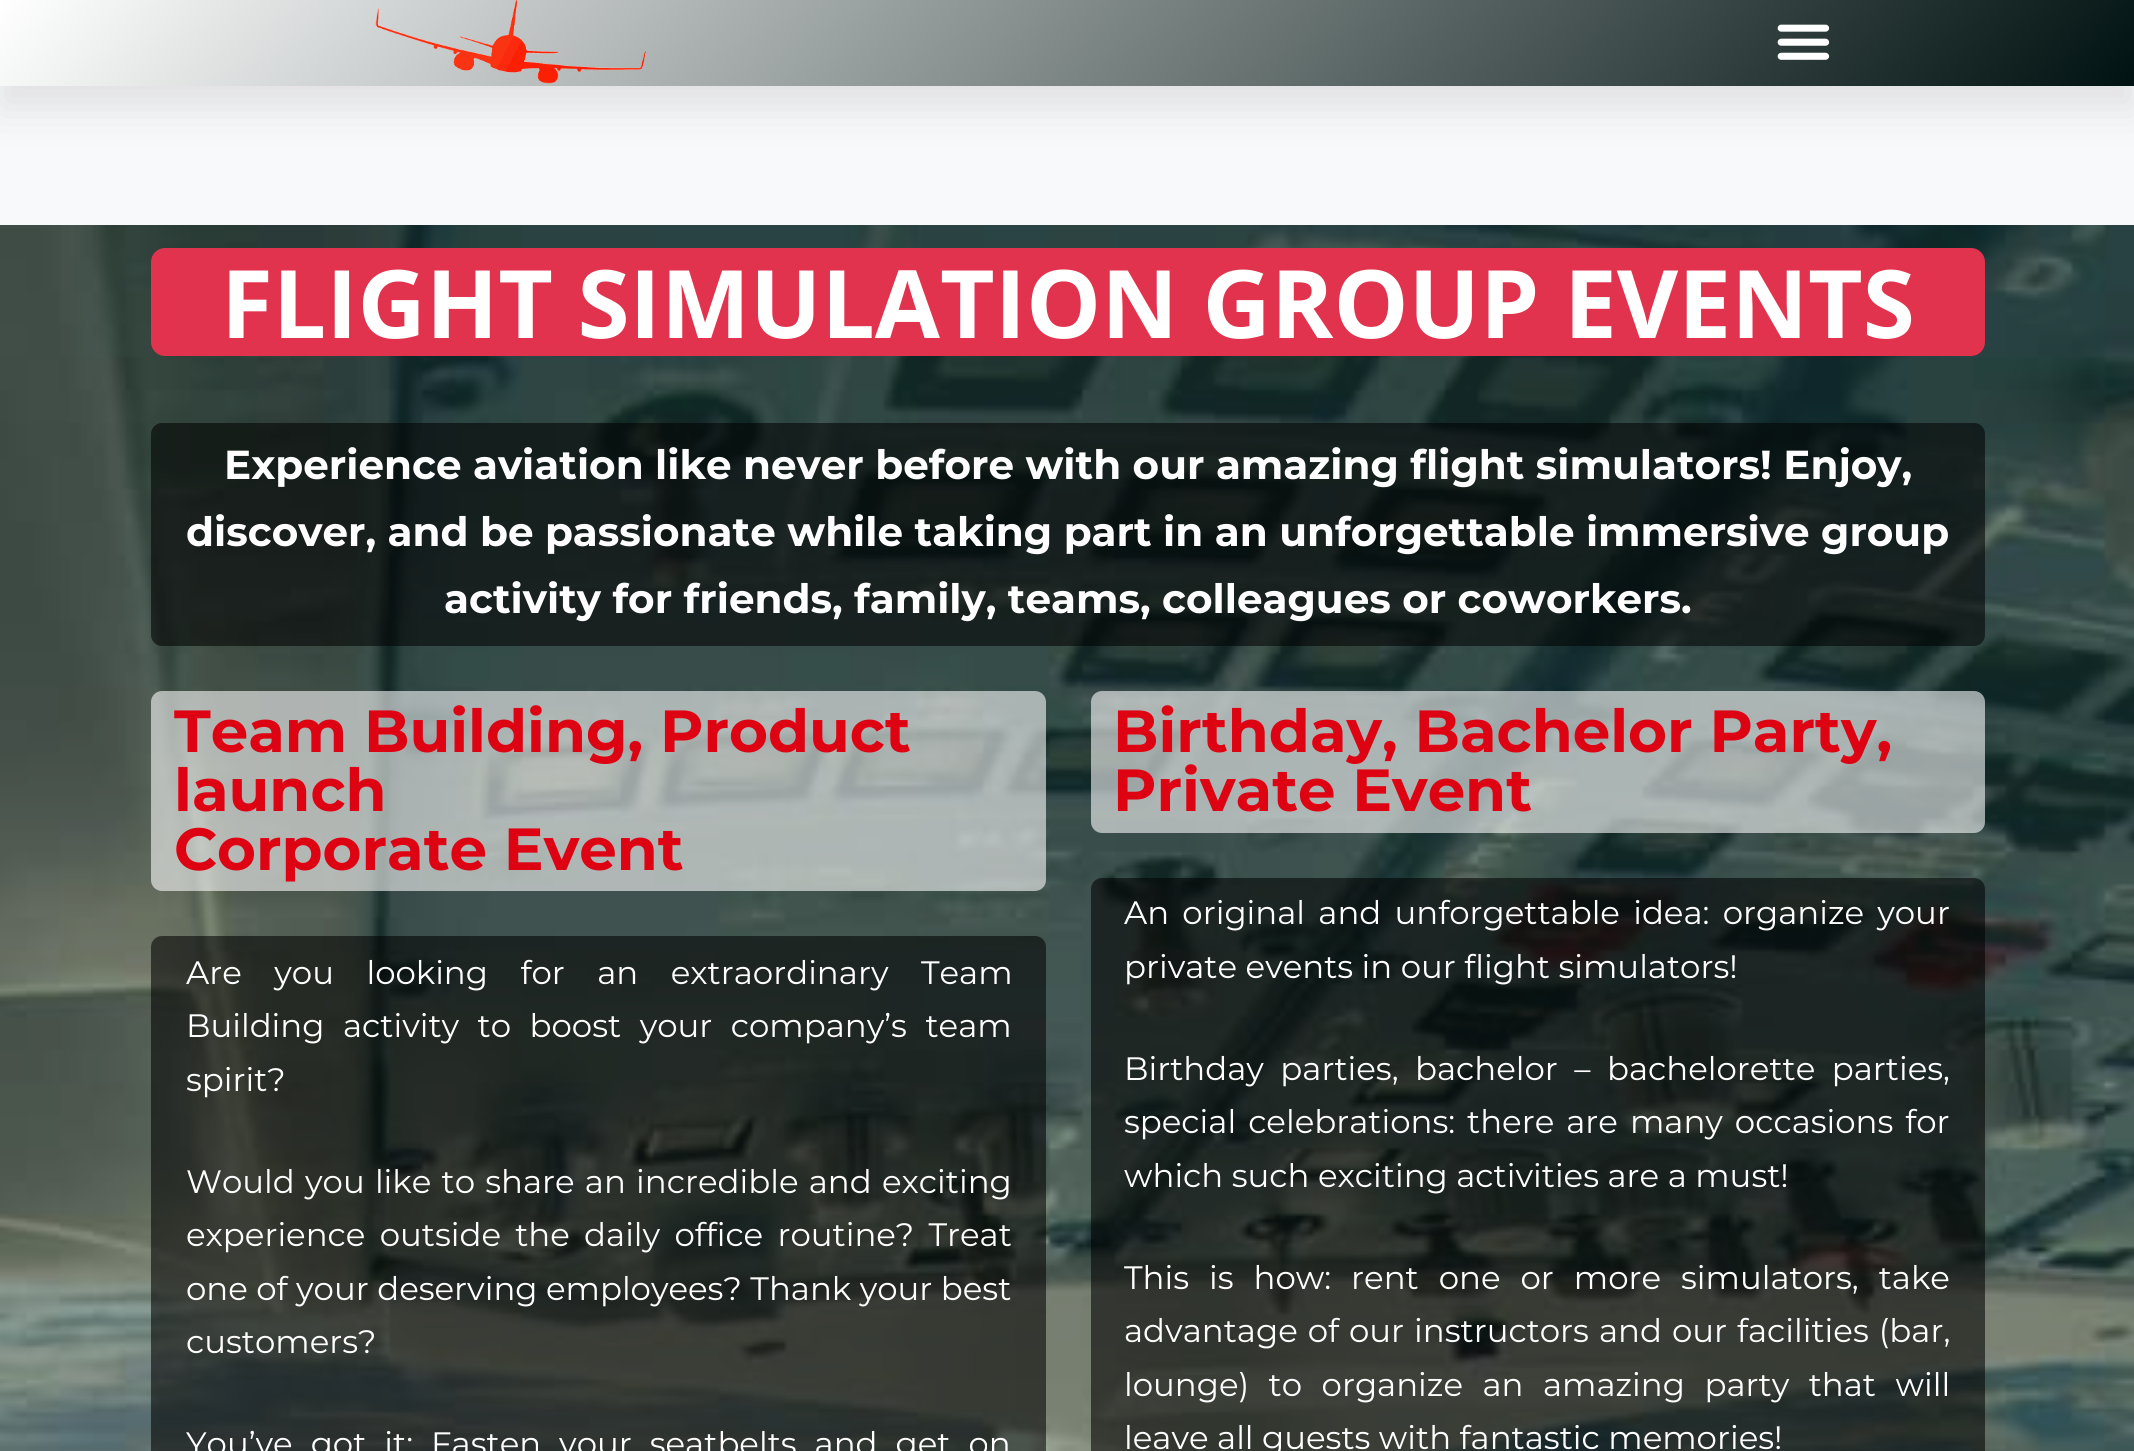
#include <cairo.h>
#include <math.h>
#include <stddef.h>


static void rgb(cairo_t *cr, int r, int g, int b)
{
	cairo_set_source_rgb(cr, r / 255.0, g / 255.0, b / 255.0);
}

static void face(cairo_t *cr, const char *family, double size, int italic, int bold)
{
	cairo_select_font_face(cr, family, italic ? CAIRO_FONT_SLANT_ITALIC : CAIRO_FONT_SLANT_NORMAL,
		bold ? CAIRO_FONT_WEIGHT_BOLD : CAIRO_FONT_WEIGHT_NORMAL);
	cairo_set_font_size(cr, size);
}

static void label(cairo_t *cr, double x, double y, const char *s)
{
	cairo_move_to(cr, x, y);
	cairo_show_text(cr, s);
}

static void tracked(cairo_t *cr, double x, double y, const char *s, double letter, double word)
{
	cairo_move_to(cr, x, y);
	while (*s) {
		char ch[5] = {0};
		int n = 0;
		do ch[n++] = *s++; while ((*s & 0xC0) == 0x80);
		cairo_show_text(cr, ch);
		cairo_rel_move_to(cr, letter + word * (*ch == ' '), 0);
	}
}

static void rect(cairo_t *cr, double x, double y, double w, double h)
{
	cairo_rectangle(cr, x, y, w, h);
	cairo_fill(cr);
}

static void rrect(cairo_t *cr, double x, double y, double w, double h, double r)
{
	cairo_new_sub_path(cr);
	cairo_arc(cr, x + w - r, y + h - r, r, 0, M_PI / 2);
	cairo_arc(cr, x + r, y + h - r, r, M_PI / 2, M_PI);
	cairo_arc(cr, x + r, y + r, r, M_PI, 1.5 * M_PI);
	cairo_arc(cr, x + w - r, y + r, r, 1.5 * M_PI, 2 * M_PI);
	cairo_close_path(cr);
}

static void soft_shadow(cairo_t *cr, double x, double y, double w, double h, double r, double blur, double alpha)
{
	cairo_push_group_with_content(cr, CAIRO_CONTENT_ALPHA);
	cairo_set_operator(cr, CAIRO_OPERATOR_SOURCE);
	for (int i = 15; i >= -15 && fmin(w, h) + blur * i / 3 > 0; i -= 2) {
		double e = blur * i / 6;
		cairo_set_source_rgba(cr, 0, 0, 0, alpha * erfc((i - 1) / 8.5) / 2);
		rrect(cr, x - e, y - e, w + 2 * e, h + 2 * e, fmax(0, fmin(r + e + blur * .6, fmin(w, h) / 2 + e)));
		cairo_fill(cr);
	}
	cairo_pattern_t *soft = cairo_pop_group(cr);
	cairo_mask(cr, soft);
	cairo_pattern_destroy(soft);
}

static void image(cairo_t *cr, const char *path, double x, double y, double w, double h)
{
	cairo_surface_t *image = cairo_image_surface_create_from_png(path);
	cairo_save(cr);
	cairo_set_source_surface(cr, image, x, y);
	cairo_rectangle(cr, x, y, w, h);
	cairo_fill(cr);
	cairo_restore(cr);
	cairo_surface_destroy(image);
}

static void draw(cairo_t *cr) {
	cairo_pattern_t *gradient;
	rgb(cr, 248, 249, 251);
	cairo_paint(cr);
	rgb(cr, 0, 0, 0);
	soft_shadow(cr, 0, 23, 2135, 85, 0, 22.5, 0.1);
	gradient = cairo_pattern_create_linear(420, -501, 1715, 586);
	cairo_pattern_add_color_stop_rgba(gradient, 0, 1, 1, 1, 1);
	cairo_pattern_add_color_stop_rgba(gradient, 1, 0, 0.071, 0.067, 1);
	cairo_set_source(cr, gradient);
	cairo_pattern_destroy(gradient);
	rect(cr, 0, 0, 2134, 86);
	image(cr, "image0.png", 375, 0, 271, 84);
	image(cr, "image1.png", 1777, 24, 53, 36);
	image(cr, "image2.png", 0, 225, 2134, 1226);
	rgb(cr, 225, 51, 77);
	rrect(cr, 151, 248, 1834, 108, 14);
	cairo_fill(cr);
	face(cr, "Open Sans", 94.5, 0, 1);
	rgb(cr, 255, 255, 255);
	label(cr, 221, 338, "FLIGHT SIMULATION GROUP EVENTS");
	cairo_set_source_rgba(cr, 0, 0, 0, 0.56);
	rrect(cr, 151, 423, 1834, 223, 11);
	cairo_fill(cr);
	face(cr, "Montserrat", 40.5, 0, 1);
	rgb(cr, 255, 255, 255);
	label(cr, 224, 479, "Experience aviation like never before with our amazing flight simulators! Enjoy,");
	label(cr, 186, 546, "discover, and be passionate while taking part in an unforgettable immersive group");
	label(cr, 444, 613, "activity for friends, family, teams, colleagues or coworkers.");
	cairo_set_source_rgba(cr, 1, 1, 1, 0.58);
	rrect(cr, 151, 691, 895, 200, 11);
	cairo_fill(cr);
	face(cr, "Montserrat", 59.4, 0, 1);
	rgb(cr, 222, 3, 19);
	label(cr, 174, 752, "Team Building, Product");
	label(cr, 174, 811, "launch");
	label(cr, 174, 870, "Corporate Event");
	cairo_set_source_rgba(cr, 0, 0, 0, 0.56);
	rrect(cr, 151, 936, 895, 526, 11);
	cairo_fill(cr);
	face(cr, "Montserrat", 32.4, 0, 0);
	rgb(cr, 255, 255, 255);
	tracked(cr, 186, 984, "Are you looking for an extraordinary Team", 0, 24);
	tracked(cr, 186, 1037, "Building activity to boost your company’s team", 0, 10);
	label(cr, 186, 1091, "spirit?");
	tracked(cr, 186, 1193, "Would you like to share an incredible and exciting", 0, 1.75);
	tracked(cr, 186, 1246, "experience outside the daily office routine? Treat", 0, 5.75);
	label(cr, 186, 1300, "one of your deserving employees? Thank your best");
	label(cr, 186, 1353, "customers?");
	tracked(cr, 186, 1455, "You’ve got it: Fasten your seatbelts and get on", 0, 9.5);
	cairo_set_source_rgba(cr, 1, 1, 1, 0.58);
	rrect(cr, 1091, 691, 894, 142, 11);
	cairo_fill(cr);
	face(cr, "Montserrat", 59.4, 0, 1);
	rgb(cr, 222, 3, 19);
	label(cr, 1113, 752, "Birthday, Bachelor Party,");
	label(cr, 1113, 811, "Private Event");
	cairo_set_source_rgba(cr, 0, 0, 0, 0.56);
	rrect(cr, 1091, 878, 894, 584, 11);
	cairo_fill(cr);
	face(cr, "Montserrat", 32.4, 0, 0);
	rgb(cr, 255, 255, 255);
	tracked(cr, 1124, 924, "An original and unforgettable idea: organize your", 0, 4.75);
	label(cr, 1124, 978, "private events in our flight simulators!");
	tracked(cr, 1124, 1080, "Birthday parties, bachelor – bachelorette parties,", 0, 8);
	tracked(cr, 1124, 1133, "special celebrations: there are many occasions for", 0, 3.5);
	label(cr, 1124, 1187, "which such exciting activities are a must!");
	tracked(cr, 1124, 1289, "This is how: rent one or more simulators, take", 0, 11.5);
	tracked(cr, 1124, 1342, "advantage of our instructors and our facilities (bar,", 0, 1.5);
	tracked(cr, 1124, 1396, "lounge) to organize an amazing party that will", 0, 11);
	label(cr, 1124, 1449, "leave all guests with fantastic memories!");
}

int main(void) {
	cairo_surface_t *surface = cairo_image_surface_create(CAIRO_FORMAT_RGB24, 2134, 1451);
	cairo_t *cr = cairo_create(surface);
	cairo_font_options_t *options = cairo_font_options_create();
	cairo_font_options_set_hint_metrics(options, CAIRO_HINT_METRICS_OFF);
	cairo_font_options_set_hint_style(options, CAIRO_HINT_STYLE_NONE);
	cairo_set_font_options(cr, options);
	cairo_set_miter_limit(cr, 4);
	draw(cr);
	cairo_surface_write_to_png(surface, "render.png");
	cairo_font_options_destroy(options);
	cairo_destroy(cr);
	cairo_surface_destroy(surface);
	return 0;
}
